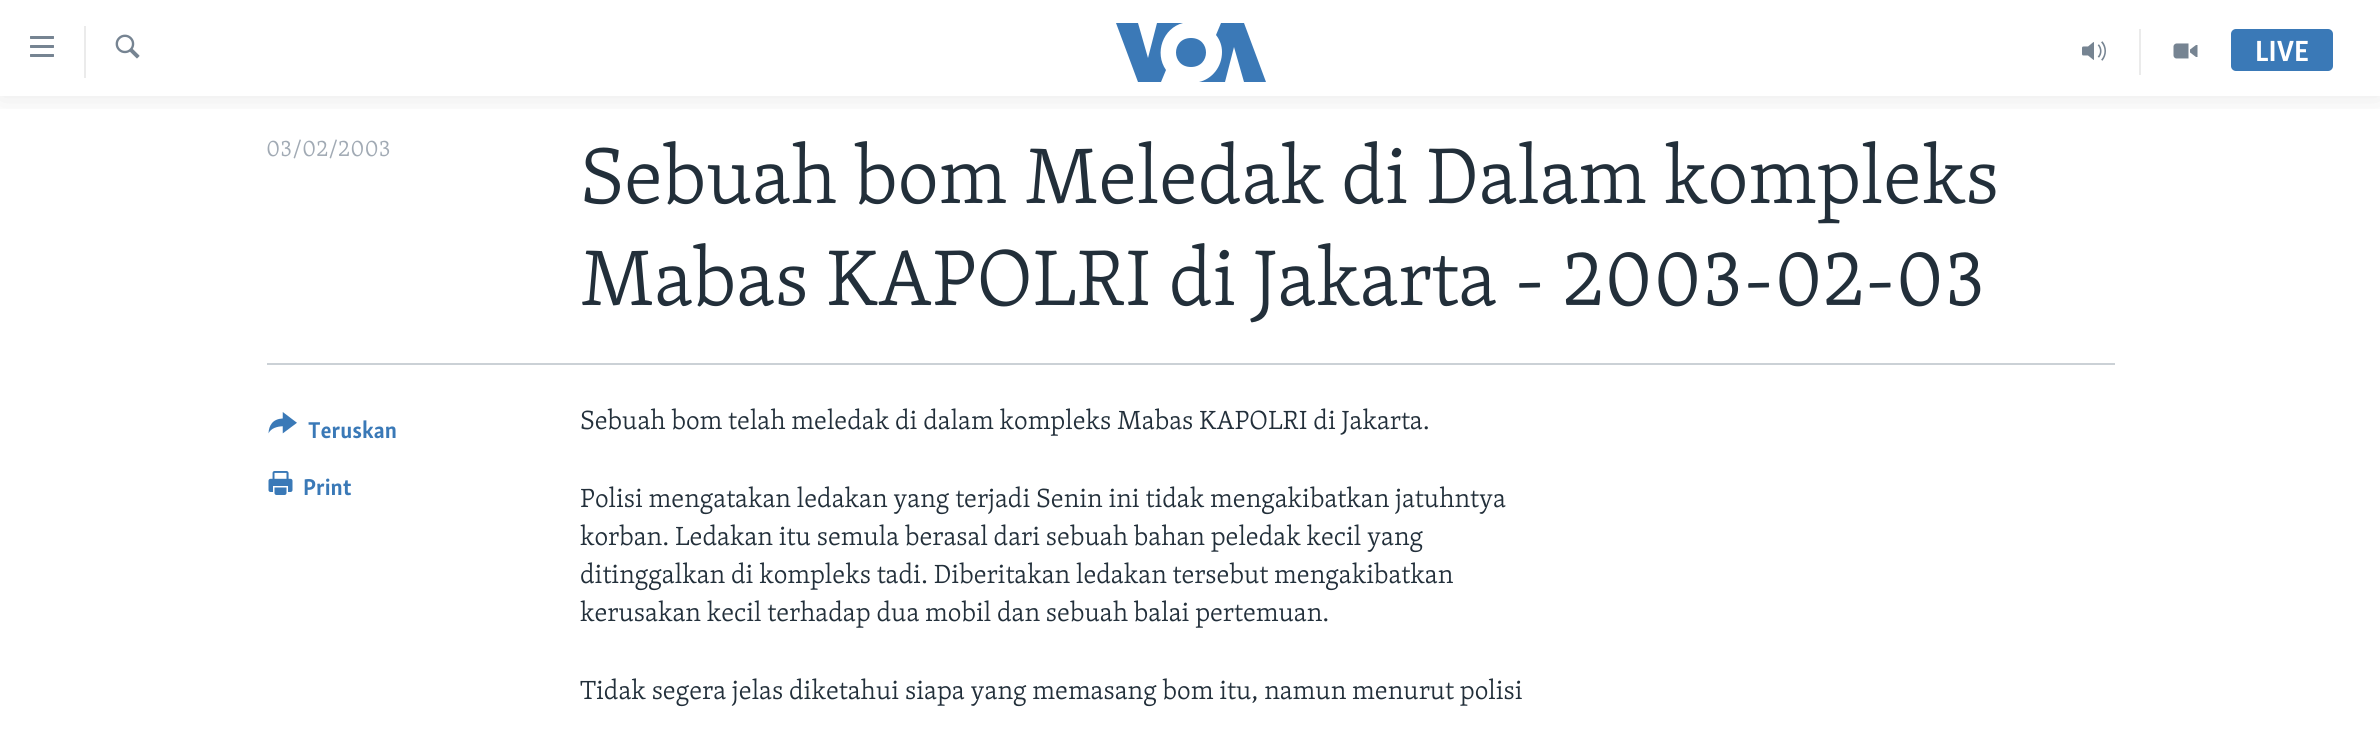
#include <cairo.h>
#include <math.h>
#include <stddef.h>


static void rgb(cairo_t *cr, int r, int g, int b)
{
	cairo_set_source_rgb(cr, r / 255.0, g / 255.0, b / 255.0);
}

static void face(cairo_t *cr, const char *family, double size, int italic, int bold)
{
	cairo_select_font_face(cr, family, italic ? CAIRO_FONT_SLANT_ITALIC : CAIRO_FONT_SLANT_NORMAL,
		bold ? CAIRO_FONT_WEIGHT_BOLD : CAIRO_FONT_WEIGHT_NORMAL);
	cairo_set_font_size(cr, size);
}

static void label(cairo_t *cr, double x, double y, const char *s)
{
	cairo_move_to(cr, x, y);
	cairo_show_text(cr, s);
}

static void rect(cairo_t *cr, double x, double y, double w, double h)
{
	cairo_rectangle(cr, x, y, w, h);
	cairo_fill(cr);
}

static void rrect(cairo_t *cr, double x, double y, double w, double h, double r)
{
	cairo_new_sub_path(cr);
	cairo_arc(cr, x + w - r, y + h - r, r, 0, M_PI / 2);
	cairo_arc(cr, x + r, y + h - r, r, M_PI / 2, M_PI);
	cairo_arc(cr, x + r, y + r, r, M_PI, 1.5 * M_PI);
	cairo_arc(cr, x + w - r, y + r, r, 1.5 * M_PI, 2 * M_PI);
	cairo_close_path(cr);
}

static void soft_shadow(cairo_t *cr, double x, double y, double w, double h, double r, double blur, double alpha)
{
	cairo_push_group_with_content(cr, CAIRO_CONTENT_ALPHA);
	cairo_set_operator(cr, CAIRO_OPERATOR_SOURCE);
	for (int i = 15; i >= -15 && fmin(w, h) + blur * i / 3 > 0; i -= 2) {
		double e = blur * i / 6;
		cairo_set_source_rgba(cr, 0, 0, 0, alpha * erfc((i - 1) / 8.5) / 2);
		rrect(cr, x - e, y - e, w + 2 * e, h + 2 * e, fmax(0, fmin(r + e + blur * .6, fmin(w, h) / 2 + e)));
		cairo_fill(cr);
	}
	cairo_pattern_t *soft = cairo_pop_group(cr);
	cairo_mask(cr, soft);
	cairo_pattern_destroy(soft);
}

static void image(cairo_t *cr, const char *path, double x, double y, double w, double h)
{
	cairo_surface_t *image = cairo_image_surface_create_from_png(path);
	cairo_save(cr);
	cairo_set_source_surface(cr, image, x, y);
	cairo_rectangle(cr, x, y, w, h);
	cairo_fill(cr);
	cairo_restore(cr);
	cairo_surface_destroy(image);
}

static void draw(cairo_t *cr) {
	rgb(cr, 255, 255, 255);
	cairo_paint(cr);
	cairo_save(cr);
	cairo_rectangle(cr, 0, 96, 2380, 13);
	cairo_clip(cr);
	rgb(cr, 0, 0, 0);
	soft_shadow(cr, 0, 0, 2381, 96, 0, 15, 0.1);
	cairo_restore(cr);
	image(cr, "image0.png", 30, 36, 24, 21);
	rgb(cr, 235, 235, 235);
	rect(cr, 84, 26, 2, 52);
	image(cr, "image1.png", 115, 34, 25, 25);
	rgb(cr, 59, 121, 183);
	cairo_new_path(cr);
	cairo_move_to(cr, 1166, 70);
	cairo_line_to(cr, 1161, 82);
	cairo_line_to(cr, 1138, 82);
	cairo_line_to(cr, 1116, 23);
	cairo_line_to(cr, 1138, 23);
	cairo_line_to(cr, 1148, 58);
	cairo_line_to(cr, 1157, 23);
	cairo_line_to(cr, 1183, 23);
	cairo_curve_to(cr, 1163, 28, 1154, 53, 1166, 70);
	cairo_close_path(cr);
	cairo_move_to(cr, 1191, 38);
	cairo_curve_to(cr, 1171, 38, 1171, 67, 1191, 67);
	cairo_curve_to(cr, 1211, 67, 1211, 38, 1191, 38);
	cairo_close_path(cr);
	cairo_move_to(cr, 1222, 52);
	cairo_curve_to(cr, 1222, 67, 1212, 79, 1199, 82);
	cairo_line_to(cr, 1225, 82);
	cairo_line_to(cr, 1234, 47);
	cairo_line_to(cr, 1244, 82);
	cairo_line_to(cr, 1266, 82);
	cairo_line_to(cr, 1244, 23);
	cairo_line_to(cr, 1221, 23);
	cairo_line_to(cr, 1216, 35);
	cairo_curve_to(cr, 1220, 40, 1222, 46, 1222, 52);
	cairo_close_path(cr);
	cairo_fill(cr);
	rgb(cr, 235, 235, 235);
	rect(cr, 2139, 29, 2, 46);
	image(cr, "image2.png", 2082, 41, 24, 20);
	image(cr, "image3.png", 2173, 43, 25, 16);
	rgb(cr, 58, 121, 183);
	rrect(cr, 2231, 29, 102, 42, 5);
	cairo_fill(cr);
	face(cr, "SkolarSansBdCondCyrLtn", 30, 0, 1);
	rgb(cr, 255, 255, 255);
	label(cr, 2255, 61, "LIVE");
	face(cr, "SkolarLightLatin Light", 23.5, 0, 0);
	rgb(cr, 161, 170, 180);
	label(cr, 266, 156, "03/02/2003");
	face(cr, "SkolarLightLatin Light", 81, 0, 0);
	rgb(cr, 34, 47, 58);
	label(cr, 580, 203, "Sebuah bom Meledak di Dalam kompleks");
	label(cr, 580, 305, "Mabas KAPOLRI di Jakarta - 2003-02-03");
	rgb(cr, 203, 209, 214);
	rect(cr, 267, 363, 1848, 2);
	image(cr, "image4.png", 268, 412, 29, 22);
	face(cr, "SkolarSansBdCondCyrLtn", 23.5, 0, 1);
	rgb(cr, 58, 121, 183);
	label(cr, 308, 438, "Teruskan");
	image(cr, "image5.png", 268, 471, 25, 24);
	label(cr, 303, 495, "Print");
	face(cr, "SkolarLightLatin Light", 27, 0, 0);
	rgb(cr, 34, 47, 58);
	label(cr, 580, 429, "Sebuah bom telah meledak di dalam kompleks Mabas KAPOLRI di Jakarta.");
	label(cr, 580, 507, "Polisi mengatakan ledakan yang terjadi Senin ini tidak mengakibatkan jatuhntya");
	label(cr, 580, 545, "korban. Ledakan itu semula berasal dari sebuah bahan peledak kecil yang");
	label(cr, 580, 583, "ditinggalkan di kompleks tadi. Diberitakan ledakan tersebut mengakibatkan");
	label(cr, 580, 621, "kerusakan kecil terhadap dua mobil dan sebuah balai pertemuan.");
	label(cr, 580, 699, "Tidak segera jelas diketahui siapa yang memasang bom itu, namun menurut polisi");
}

int main(void) {
	cairo_surface_t *surface = cairo_image_surface_create(CAIRO_FORMAT_RGB24, 2380, 733);
	cairo_t *cr = cairo_create(surface);
	cairo_font_options_t *options = cairo_font_options_create();
	cairo_font_options_set_hint_metrics(options, CAIRO_HINT_METRICS_OFF);
	cairo_font_options_set_hint_style(options, CAIRO_HINT_STYLE_NONE);
	cairo_set_font_options(cr, options);
	cairo_set_miter_limit(cr, 4);
	draw(cr);
	cairo_surface_write_to_png(surface, "render.png");
	cairo_font_options_destroy(options);
	cairo_destroy(cr);
	cairo_surface_destroy(surface);
	return 0;
}
